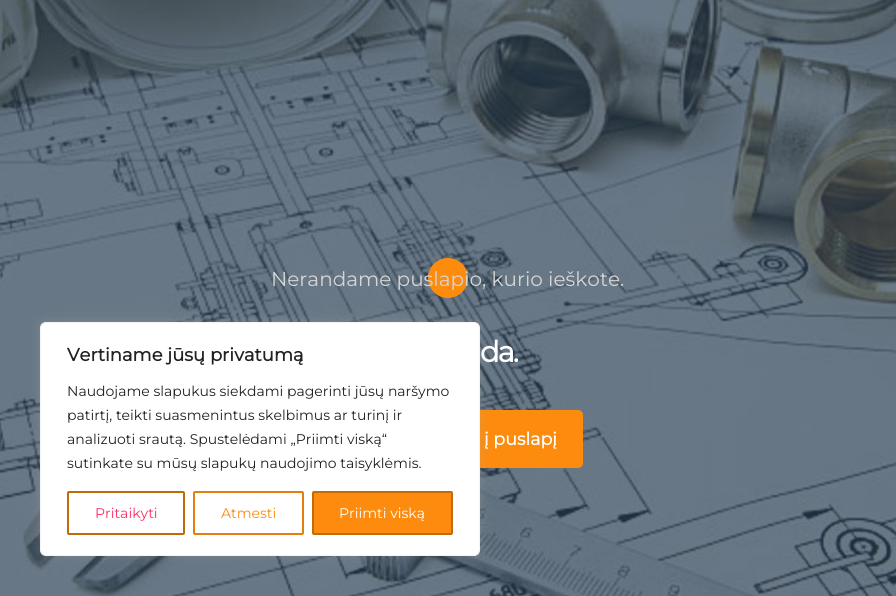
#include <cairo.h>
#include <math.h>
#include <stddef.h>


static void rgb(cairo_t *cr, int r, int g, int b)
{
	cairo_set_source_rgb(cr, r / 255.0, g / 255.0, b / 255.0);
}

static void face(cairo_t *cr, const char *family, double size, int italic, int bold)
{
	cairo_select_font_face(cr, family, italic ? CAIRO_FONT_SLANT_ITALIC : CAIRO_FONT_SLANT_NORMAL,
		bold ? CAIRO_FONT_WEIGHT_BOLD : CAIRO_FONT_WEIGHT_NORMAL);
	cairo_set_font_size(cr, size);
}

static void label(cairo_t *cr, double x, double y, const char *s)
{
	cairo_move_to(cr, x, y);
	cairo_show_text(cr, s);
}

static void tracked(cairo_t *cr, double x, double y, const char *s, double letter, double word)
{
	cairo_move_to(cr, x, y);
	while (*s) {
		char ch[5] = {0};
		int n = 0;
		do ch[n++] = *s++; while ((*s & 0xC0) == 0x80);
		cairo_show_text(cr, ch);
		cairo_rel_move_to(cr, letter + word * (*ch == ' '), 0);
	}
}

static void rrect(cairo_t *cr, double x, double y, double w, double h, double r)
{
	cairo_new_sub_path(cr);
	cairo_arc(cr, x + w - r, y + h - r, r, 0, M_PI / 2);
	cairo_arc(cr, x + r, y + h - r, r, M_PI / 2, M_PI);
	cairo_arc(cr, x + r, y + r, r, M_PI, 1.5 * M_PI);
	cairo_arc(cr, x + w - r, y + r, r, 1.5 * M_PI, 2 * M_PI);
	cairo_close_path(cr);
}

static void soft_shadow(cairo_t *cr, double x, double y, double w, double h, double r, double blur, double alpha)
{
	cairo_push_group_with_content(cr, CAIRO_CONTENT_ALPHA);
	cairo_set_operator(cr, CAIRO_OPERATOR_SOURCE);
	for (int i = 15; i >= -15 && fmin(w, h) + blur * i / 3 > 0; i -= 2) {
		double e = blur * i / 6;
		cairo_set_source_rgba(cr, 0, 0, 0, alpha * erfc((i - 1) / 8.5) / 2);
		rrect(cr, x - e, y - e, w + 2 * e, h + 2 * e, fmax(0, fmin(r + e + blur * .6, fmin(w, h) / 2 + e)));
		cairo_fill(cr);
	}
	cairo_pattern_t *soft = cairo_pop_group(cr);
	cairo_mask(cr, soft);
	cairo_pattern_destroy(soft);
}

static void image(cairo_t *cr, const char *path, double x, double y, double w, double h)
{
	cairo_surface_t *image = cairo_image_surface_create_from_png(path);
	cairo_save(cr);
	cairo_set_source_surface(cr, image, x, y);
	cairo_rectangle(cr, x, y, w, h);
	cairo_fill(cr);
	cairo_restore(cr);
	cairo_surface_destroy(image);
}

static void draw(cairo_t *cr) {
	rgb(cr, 255, 255, 255);
	cairo_paint(cr);
	image(cr, "image0.png", 0, 0, 896, 596);
	rgb(cr, 253, 139, 13);
	cairo_arc(cr, 448, 278, 20, 0, 2 * M_PI);
	cairo_fill(cr);
	face(cr, "Montserrat", 20, 0, 0);
	rgb(cr, 214, 213, 212);
	label(cr, 271, 286, "Nerandame puslapio, kurio ieškote.");
	face(cr, "Montserrat", 29, 0, 1);
	rgb(cr, 255, 255, 255);
	tracked(cr, 480, 362, "da.", -2, 0);
	rgb(cr, 253, 139, 13);
	rrect(cr, 313, 410, 270, 58, 5);
	cairo_fill(cr);
	face(cr, "Montserrat", 17.5, 0, 1);
	rgb(cr, 255, 255, 255);
	label(cr, 484, 445, "į puslapį");
	rgb(cr, 172, 171, 171);
	soft_shadow(cr, 40, 321, 440, 234, 6, 5, 0.3);
	rgb(cr, 255, 255, 255);
	rrect(cr, 40.5, 322.5, 439, 233, 5.5);
	cairo_fill_preserve(cr);
	rgb(cr, 244, 244, 244);
	cairo_set_line_width(cr, 1);
	cairo_stroke(cr);
	face(cr, "Montserrat", 18, 0, 1);
	rgb(cr, 33, 33, 33);
	label(cr, 67, 361, "Vertiname jūsų privatumą");
	face(cr, "Montserrat", 14, 0, 0);
	label(cr, 67, 396, "Naudojame slapukus siekdami pagerinti jūsų naršymo");
	label(cr, 67, 420, "patirtį, teikti suasmenintus skelbimus ar turinį ir");
	label(cr, 67, 444, "analizuoti srautą. Spustelėdami „Priimti viską“");
	label(cr, 67, 468, "sutinkate su mūsų slapukų naudojimo taisyklėmis.");
	rrect(cr, 68, 492, 116, 42, 1);
	rgb(cr, 194, 106, 10);
	cairo_set_line_width(cr, 2);
	cairo_stroke(cr);
	rgb(cr, 255, 44, 100);
	label(cr, 95, 518, "Pritaikyti");
	rrect(cr, 194, 492, 109, 42, 1);
	rgb(cr, 228, 126, 15);
	cairo_stroke(cr);
	rgb(cr, 253, 139, 13);
	label(cr, 221, 518, "Atmesti");
	rrect(cr, 313, 492, 139, 42, 1);
	cairo_fill_preserve(cr);
	rgb(cr, 194, 106, 10);
	cairo_stroke(cr);
	rgb(cr, 255, 255, 255);
	label(cr, 339, 518, "Priimti viską");
}

int main(void) {
	cairo_surface_t *surface = cairo_image_surface_create(CAIRO_FORMAT_RGB24, 896, 596);
	cairo_t *cr = cairo_create(surface);
	cairo_font_options_t *options = cairo_font_options_create();
	cairo_font_options_set_hint_metrics(options, CAIRO_HINT_METRICS_OFF);
	cairo_font_options_set_hint_style(options, CAIRO_HINT_STYLE_NONE);
	cairo_set_font_options(cr, options);
	cairo_set_miter_limit(cr, 4);
	draw(cr);
	cairo_surface_write_to_png(surface, "render.png");
	cairo_font_options_destroy(options);
	cairo_destroy(cr);
	cairo_surface_destroy(surface);
	return 0;
}
